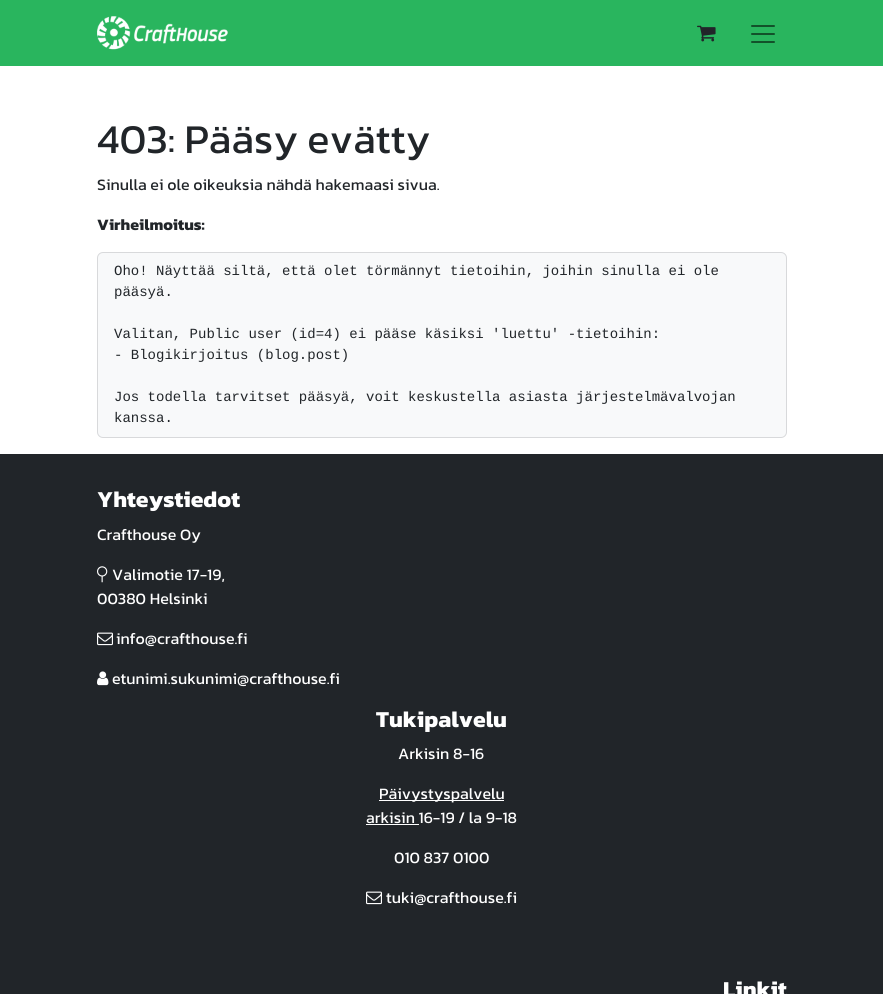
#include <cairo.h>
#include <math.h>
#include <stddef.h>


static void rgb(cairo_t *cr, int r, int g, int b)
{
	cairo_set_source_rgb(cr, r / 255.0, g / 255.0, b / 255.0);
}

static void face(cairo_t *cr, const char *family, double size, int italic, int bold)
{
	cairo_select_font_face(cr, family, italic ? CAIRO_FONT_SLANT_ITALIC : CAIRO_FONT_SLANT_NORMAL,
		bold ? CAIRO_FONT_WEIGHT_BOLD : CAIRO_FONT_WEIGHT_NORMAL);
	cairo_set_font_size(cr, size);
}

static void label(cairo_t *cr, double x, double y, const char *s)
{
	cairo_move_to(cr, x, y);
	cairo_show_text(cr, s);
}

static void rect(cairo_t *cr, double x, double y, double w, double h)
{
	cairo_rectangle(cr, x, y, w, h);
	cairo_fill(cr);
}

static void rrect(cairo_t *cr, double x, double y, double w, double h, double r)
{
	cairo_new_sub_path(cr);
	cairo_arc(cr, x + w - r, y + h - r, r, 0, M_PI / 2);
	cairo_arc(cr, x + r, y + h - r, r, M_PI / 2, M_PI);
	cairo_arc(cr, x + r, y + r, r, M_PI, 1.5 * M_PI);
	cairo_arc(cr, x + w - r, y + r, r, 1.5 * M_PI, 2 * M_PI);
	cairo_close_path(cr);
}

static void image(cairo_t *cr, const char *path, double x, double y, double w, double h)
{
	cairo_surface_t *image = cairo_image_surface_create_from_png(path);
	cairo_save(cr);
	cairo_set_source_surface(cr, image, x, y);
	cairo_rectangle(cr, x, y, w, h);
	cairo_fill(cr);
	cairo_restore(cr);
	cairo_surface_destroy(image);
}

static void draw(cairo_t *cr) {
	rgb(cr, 255, 255, 255);
	cairo_paint(cr);
	rgb(cr, 41, 181, 94);
	rect(cr, 0, 0, 883, 66);
	image(cr, "image0.png", 97, 16, 131, 34);
	image(cr, "image1.png", 697, 25, 19, 17);
	image(cr, "image2.png", 751, 25, 24, 18);
	face(cr, "Kanit", 41.25, 0, 0);
	rgb(cr, 33, 37, 41);
	label(cr, 97, 153, "403: Pääsy evätty");
	face(cr, "Kanit", 16, 0, 0);
	label(cr, 97, 190, "Sinulla ei ole oikeuksia nähdä hakemaasi sivua.");
	face(cr, "Kanit", 16, 0, 1);
	label(cr, 97, 230, "Virheilmoitus:");
	rgb(cr, 248, 249, 250);
	rrect(cr, 97.5, 252.5, 689, 185, 5.5);
	cairo_fill_preserve(cr);
	rgb(cr, 216, 217, 219);
	cairo_set_line_width(cr, 1);
	cairo_stroke(cr);
	face(cr, "Liberation Mono", 14, 0, 0);
	rgb(cr, 33, 37, 41);
	label(cr, 114, 275, "Oho! Näyttää siltä, että olet törmännyt tietoihin, joihin sinulla ei ole");
	label(cr, 114, 296, "pääsyä.");
	label(cr, 114, 338, "Valitan, Public user (id=4) ei pääse käsiksi 'luettu' -tietoihin:");
	label(cr, 114, 359, "- Blogikirjoitus (blog.post)");
	label(cr, 114, 401, "Jos todella tarvitset pääsyä, voit keskustella asiasta järjestelmävalvojan");
	label(cr, 114, 422, "kanssa.");
	rect(cr, 0, 454, 883, 540);
	face(cr, "Kanit", 23, 0, 1);
	rgb(cr, 255, 255, 255);
	label(cr, 97, 507, "Yhteystiedot");
	face(cr, "Kanit", 16, 0, 0);
	label(cr, 97, 540, "Crafthouse Oy");
	image(cr, "image3.png", 97, 566, 11, 17);
	label(cr, 112, 580, "Valimotie 17-19,");
	label(cr, 97, 604, "00380 Helsinki");
	image(cr, "image4.png", 97, 632, 16, 14);
	label(cr, 116, 644, "info@crafthouse.fi");
	image(cr, "image5.png", 97, 671, 12, 15);
	label(cr, 112, 684, "etunimi.sukunimi@crafthouse.fi");
	face(cr, "Kanit", 23, 0, 1);
	label(cr, 376, 727, "Tukipalvelu");
	face(cr, "Kanit", 16, 0, 0);
	label(cr, 398, 759, "Arkisin 8-16");
	rect(cr, 379, 800, 125, 1);
	label(cr, 379, 799, "Päivystyspalvelu");
	label(cr, 366, 823, "arkisin 16-19 / la 9-18");
	rect(cr, 366, 824, 53, 1);
	label(cr, 394, 863, "010 837 0100");
	image(cr, "image4.png", 366, 891, 16, 14);
	label(cr, 386, 903, "tuki@crafthouse.fi");
	face(cr, "Kanit", 23, 0, 1);
	label(cr, 723, 997, "Linkit");
}

int main(void) {
	cairo_surface_t *surface = cairo_image_surface_create(CAIRO_FORMAT_RGB24, 883, 994);
	cairo_t *cr = cairo_create(surface);
	cairo_font_options_t *options = cairo_font_options_create();
	cairo_font_options_set_hint_metrics(options, CAIRO_HINT_METRICS_OFF);
	cairo_font_options_set_hint_style(options, CAIRO_HINT_STYLE_NONE);
	cairo_set_font_options(cr, options);
	cairo_set_miter_limit(cr, 4);
	draw(cr);
	cairo_surface_write_to_png(surface, "render.png");
	cairo_font_options_destroy(options);
	cairo_destroy(cr);
	cairo_surface_destroy(surface);
	return 0;
}
